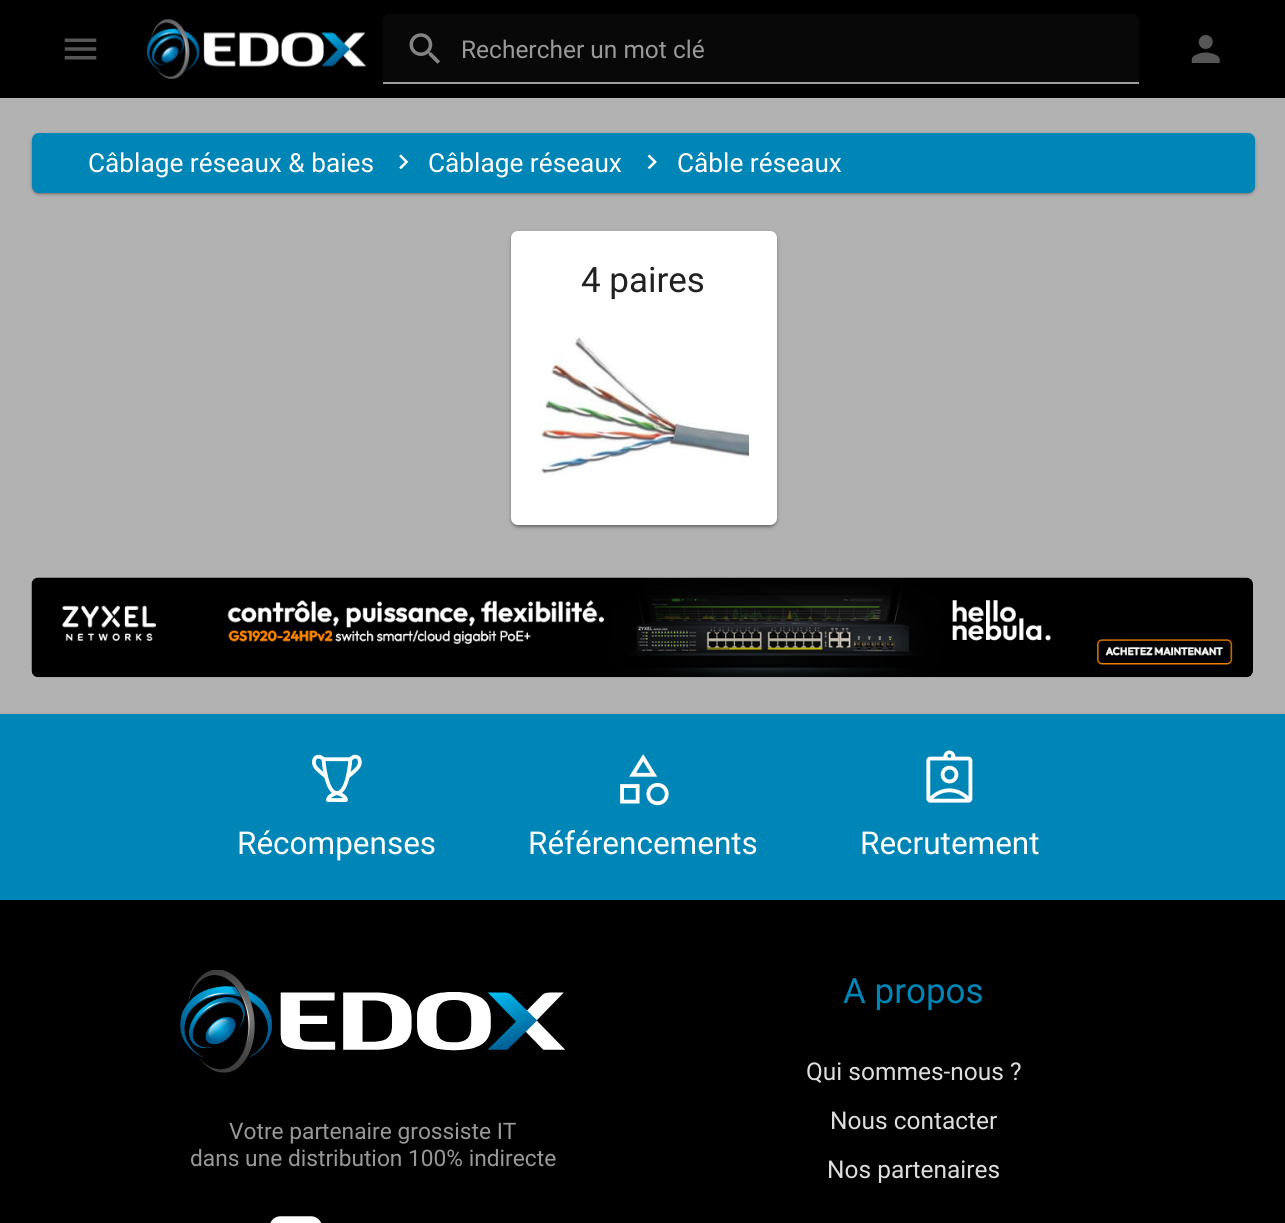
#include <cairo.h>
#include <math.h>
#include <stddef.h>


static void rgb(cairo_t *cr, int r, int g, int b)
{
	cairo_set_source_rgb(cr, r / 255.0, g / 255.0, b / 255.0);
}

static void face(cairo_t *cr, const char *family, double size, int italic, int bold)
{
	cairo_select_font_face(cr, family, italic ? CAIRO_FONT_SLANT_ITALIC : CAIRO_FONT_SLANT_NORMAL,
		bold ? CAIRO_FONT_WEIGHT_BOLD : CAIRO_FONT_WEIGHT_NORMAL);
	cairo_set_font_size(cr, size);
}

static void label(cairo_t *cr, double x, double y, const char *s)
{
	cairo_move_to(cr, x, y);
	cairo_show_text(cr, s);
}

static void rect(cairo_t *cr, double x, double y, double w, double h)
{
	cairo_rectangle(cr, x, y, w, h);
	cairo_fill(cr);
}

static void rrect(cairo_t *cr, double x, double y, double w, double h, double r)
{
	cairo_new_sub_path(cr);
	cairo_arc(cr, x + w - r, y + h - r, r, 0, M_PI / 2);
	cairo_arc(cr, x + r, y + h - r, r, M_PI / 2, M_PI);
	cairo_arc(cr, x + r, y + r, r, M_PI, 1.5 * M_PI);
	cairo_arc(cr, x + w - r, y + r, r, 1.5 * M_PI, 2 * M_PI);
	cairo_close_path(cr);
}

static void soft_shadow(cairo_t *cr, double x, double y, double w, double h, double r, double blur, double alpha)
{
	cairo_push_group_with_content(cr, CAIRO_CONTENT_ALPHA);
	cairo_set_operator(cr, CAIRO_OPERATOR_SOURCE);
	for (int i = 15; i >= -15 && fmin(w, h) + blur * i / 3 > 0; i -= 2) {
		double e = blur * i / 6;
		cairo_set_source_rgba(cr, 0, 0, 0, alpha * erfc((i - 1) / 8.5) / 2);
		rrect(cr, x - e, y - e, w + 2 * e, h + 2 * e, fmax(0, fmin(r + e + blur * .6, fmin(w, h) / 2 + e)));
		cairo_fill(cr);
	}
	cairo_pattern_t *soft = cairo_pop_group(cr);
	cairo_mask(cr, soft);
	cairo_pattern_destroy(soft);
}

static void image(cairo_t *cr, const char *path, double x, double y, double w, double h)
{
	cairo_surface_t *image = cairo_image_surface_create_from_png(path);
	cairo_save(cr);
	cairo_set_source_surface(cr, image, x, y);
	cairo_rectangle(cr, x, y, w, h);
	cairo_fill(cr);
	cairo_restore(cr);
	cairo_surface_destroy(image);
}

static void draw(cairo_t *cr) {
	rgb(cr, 178, 178, 179);
	cairo_paint(cr);
	rgb(cr, 0, 0, 0);
	rect(cr, 0, 0, 1285, 98);
	image(cr, "image0.png", 64, 38, 33, 22);
	image(cr, "image1.png", 147, 19, 219, 60);
	rgb(cr, 8, 8, 8);
	cairo_new_path(cr);
	cairo_move_to(cr, 390, 14);
	cairo_line_to(cr, 1132, 14);
	cairo_curve_to(cr, 1136, 14, 1139, 17, 1139, 21);
	cairo_line_to(cr, 1139, 84);
	cairo_line_to(cr, 383, 84);
	cairo_line_to(cr, 383, 21);
	cairo_curve_to(cr, 383, 17, 386, 14, 390, 14);
	cairo_close_path(cr);
	cairo_fill(cr);
	image(cr, "image2.png", 409, 33, 31, 31);
	rgb(cr, 156, 156, 156);
	rect(cr, 383, 82, 756, 2);
	face(cr, "Roboto", 24.5, 0, 0);
	rgb(cr, 153, 153, 153);
	label(cr, 461, 58, "Rechercher un mot clé");
	image(cr, "image3.png", 1191, 35, 29, 28);
	rgb(cr, 0, 0, 0);
	soft_shadow(cr, 32, 135, 1223, 59, 7, 2.5, 0.2);
	soft_shadow(cr, 33, 138, 1220, 56, 5, 1, 0.12);
	soft_shadow(cr, 32, 135, 1223, 59, 7, 1, 0.14);
	rgb(cr, 0, 133, 183);
	rrect(cr, 32, 133, 1223, 60, 7);
	cairo_fill(cr);
	face(cr, "Roboto", 26.25, 0, 0);
	rgb(cr, 255, 255, 255);
	label(cr, 88, 172, "Câblage réseaux & baies");
	image(cr, "image4.png", 399, 154, 10, 16);
	label(cr, 428, 172, "Câblage réseaux");
	image(cr, "image5.png", 647, 154, 10, 16);
	label(cr, 677, 172, "Câble réseaux");
	rgb(cr, 0, 0, 0);
	soft_shadow(cr, 511, 233, 266, 294, 7, 2.5, 0.2);
	soft_shadow(cr, 513, 236, 262, 291, 5, 1, 0.12);
	soft_shadow(cr, 511, 233, 266, 294, 7, 1, 0.14);
	rgb(cr, 255, 255, 255);
	rrect(cr, 511, 231, 266, 294, 7);
	cairo_fill(cr);
	face(cr, "Roboto", 35, 0, 0);
	rgb(cr, 33, 33, 33);
	label(cr, 581, 292, "4 paires");
	image(cr, "image6.png", 539, 335, 210, 140);
	image(cr, "image7.png", 31, 577, 1222, 101);
	rgb(cr, 0, 0, 0);
	soft_shadow(cr, 0, 716, 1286, 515, 0, 2.5, 0.2);
	rgb(cr, 0, 0, 0);
	rect(cr, 0, 900, 1285, 323);
	rgb(cr, 0, 133, 183);
	rect(cr, 0, 714, 1285, 186);
	image(cr, "image8.png", 312, 754, 50, 48);
	face(cr, "Roboto", 31.5, 0, 0);
	rgb(cr, 255, 255, 255);
	label(cr, 237, 854, "Récompenses");
	image(cr, "image9.png", 620, 754, 49, 52);
	label(cr, 528, 854, "Référencements");
	image(cr, "image10.png", 926, 750, 47, 53);
	label(cr, 860, 854, "Recrutement");
	image(cr, "image11.png", 180, 970, 385, 103);
	face(cr, "Roboto", 22.75, 0, 0);
	rgb(cr, 153, 153, 153);
	label(cr, 229, 1139, "Votre partenaire grossiste IT");
	label(cr, 190, 1166, "dans une distribution 100% indirecte");
	image(cr, "image12.png", 270, 1216, 52, 7);
	face(cr, "Roboto", 35, 0, 0);
	rgb(cr, 0, 133, 183);
	label(cr, 843, 1003, "A propos");
	face(cr, "Roboto", 24.5, 0, 0);
	rgb(cr, 222, 222, 222);
	label(cr, 806, 1080, "Qui sommes-nous ?");
	label(cr, 830, 1129, "Nous contacter");
	label(cr, 827, 1178, "Nos partenaires");
}

int main(void) {
	cairo_surface_t *surface = cairo_image_surface_create(CAIRO_FORMAT_RGB24, 1285, 1223);
	cairo_t *cr = cairo_create(surface);
	cairo_font_options_t *options = cairo_font_options_create();
	cairo_font_options_set_hint_metrics(options, CAIRO_HINT_METRICS_OFF);
	cairo_font_options_set_hint_style(options, CAIRO_HINT_STYLE_NONE);
	cairo_set_font_options(cr, options);
	cairo_set_miter_limit(cr, 4);
	draw(cr);
	cairo_surface_write_to_png(surface, "render.png");
	cairo_font_options_destroy(options);
	cairo_destroy(cr);
	cairo_surface_destroy(surface);
	return 0;
}
